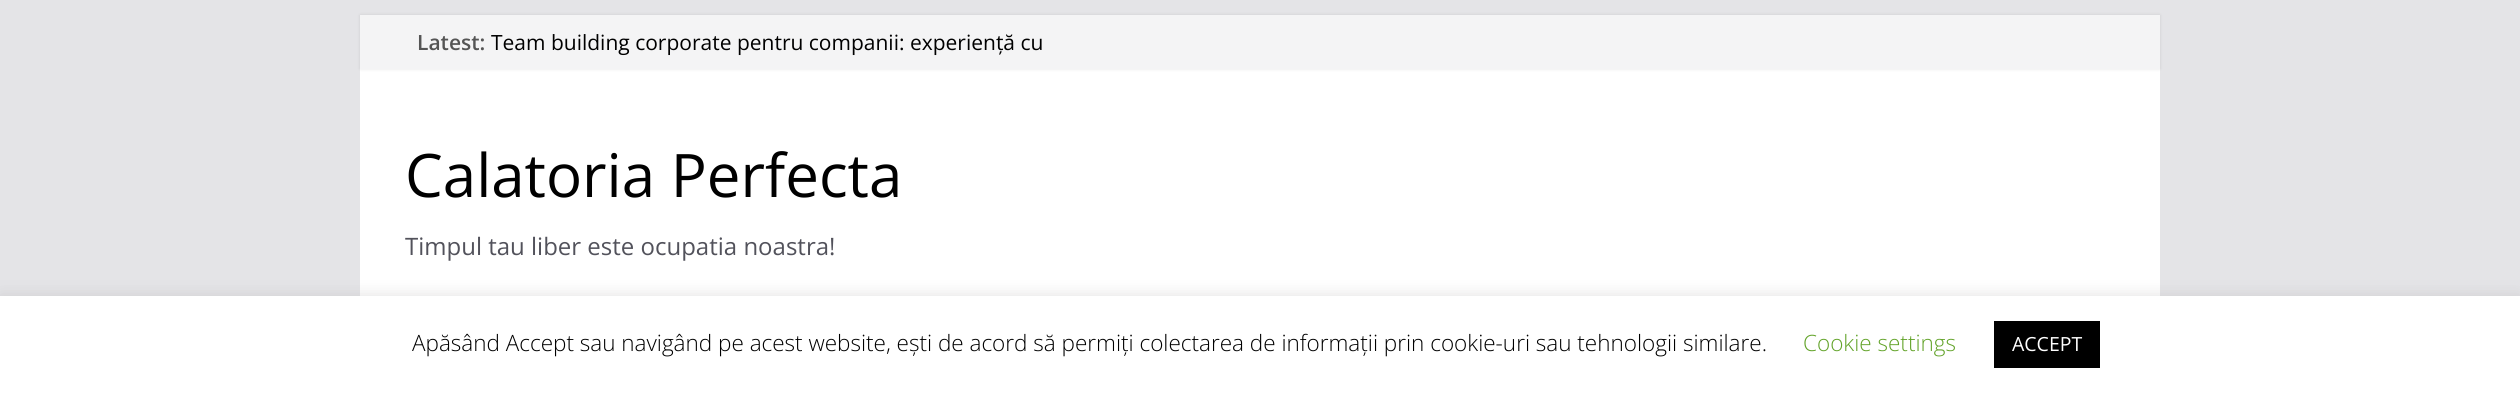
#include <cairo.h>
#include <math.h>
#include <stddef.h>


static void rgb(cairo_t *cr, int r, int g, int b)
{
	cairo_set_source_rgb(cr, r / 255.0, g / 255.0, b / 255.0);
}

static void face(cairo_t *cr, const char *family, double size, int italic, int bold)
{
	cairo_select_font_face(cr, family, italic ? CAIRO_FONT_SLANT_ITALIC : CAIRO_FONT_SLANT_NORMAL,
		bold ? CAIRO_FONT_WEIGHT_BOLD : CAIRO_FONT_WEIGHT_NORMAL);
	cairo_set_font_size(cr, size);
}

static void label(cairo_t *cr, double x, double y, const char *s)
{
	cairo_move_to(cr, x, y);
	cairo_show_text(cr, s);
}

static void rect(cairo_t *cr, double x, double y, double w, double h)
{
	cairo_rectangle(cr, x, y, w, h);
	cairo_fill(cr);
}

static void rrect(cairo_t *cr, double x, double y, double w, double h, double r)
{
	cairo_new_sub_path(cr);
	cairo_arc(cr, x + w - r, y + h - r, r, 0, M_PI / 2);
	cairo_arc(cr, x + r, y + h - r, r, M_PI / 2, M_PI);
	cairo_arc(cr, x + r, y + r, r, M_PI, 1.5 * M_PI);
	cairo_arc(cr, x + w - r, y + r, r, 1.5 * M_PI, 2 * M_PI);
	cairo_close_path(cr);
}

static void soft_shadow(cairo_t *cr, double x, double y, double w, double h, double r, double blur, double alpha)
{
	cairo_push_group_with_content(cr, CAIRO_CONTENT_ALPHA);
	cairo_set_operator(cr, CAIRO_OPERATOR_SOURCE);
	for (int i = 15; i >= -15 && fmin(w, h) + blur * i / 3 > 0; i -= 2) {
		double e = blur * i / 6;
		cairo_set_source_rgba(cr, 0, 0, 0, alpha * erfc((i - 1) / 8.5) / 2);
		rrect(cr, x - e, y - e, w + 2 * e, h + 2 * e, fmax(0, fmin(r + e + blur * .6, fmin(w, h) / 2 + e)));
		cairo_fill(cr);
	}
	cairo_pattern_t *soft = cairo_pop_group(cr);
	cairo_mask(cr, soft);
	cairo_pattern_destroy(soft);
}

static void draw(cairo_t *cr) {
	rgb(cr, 228, 228, 231);
	cairo_paint(cr);
	rgb(cr, 255, 255, 255);
	rect(cr, 360, 69, 1800, 227);
	rgb(cr, 0, 0, 0);
	soft_shadow(cr, 360, 15, 1800, 54, 0, 1.5, 0.1);
	rgb(cr, 244, 244, 245);
	rect(cr, 360, 15, 1800, 54);
	face(cr, "Open Sans SemiBold", 21, 0, 0);
	rgb(cr, 85, 85, 85);
	label(cr, 417, 50, "Latest:");
	face(cr, "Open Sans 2", 21, 0, 0);
	rgb(cr, 0, 0, 0);
	label(cr, 491, 50, "Team building corporate pentru companii: experiență cu");
	face(cr, "Open Sans", 60, 0, 0);
	label(cr, 405, 197, "Calatoria Perfecta");
	face(cr, "Open Sans 2", 24, 0, 0);
	rgb(cr, 82, 82, 91);
	label(cr, 405, 255, "Timpul tau liber este ocupatia noastra!");
	rgb(cr, 172, 171, 171);
	soft_shadow(cr, 0, 294, 2520, 98, 0, 7.5, 0.3);
	rgb(cr, 255, 255, 255);
	rect(cr, 0, 296, 2520, 97);
	face(cr, "Open Sans Light", 22.5, 0, 0);
	rgb(cr, 0, 0, 0);
	label(cr, 412, 351, "Apăsând Accept sau navigând pe acest website, ești de acord să permiți colectarea de informații prin cookie-uri sau tehnologii similare.");
	rgb(cr, 98, 163, 41);
	label(cr, 1803, 351, "Cookie settings");
	rgb(cr, 0, 0, 0);
	rect(cr, 1994, 321, 106, 47);
	face(cr, "Open Sans 2", 19.5, 0, 0);
	rgb(cr, 255, 255, 255);
	label(cr, 2012, 351, "ACCEPT");
}

int main(void) {
	cairo_surface_t *surface = cairo_image_surface_create(CAIRO_FORMAT_RGB24, 2520, 393);
	cairo_t *cr = cairo_create(surface);
	cairo_font_options_t *options = cairo_font_options_create();
	cairo_font_options_set_hint_metrics(options, CAIRO_HINT_METRICS_OFF);
	cairo_font_options_set_hint_style(options, CAIRO_HINT_STYLE_NONE);
	cairo_set_font_options(cr, options);
	cairo_set_miter_limit(cr, 4);
	draw(cr);
	cairo_surface_write_to_png(surface, "render.png");
	cairo_font_options_destroy(options);
	cairo_destroy(cr);
	cairo_surface_destroy(surface);
	return 0;
}
